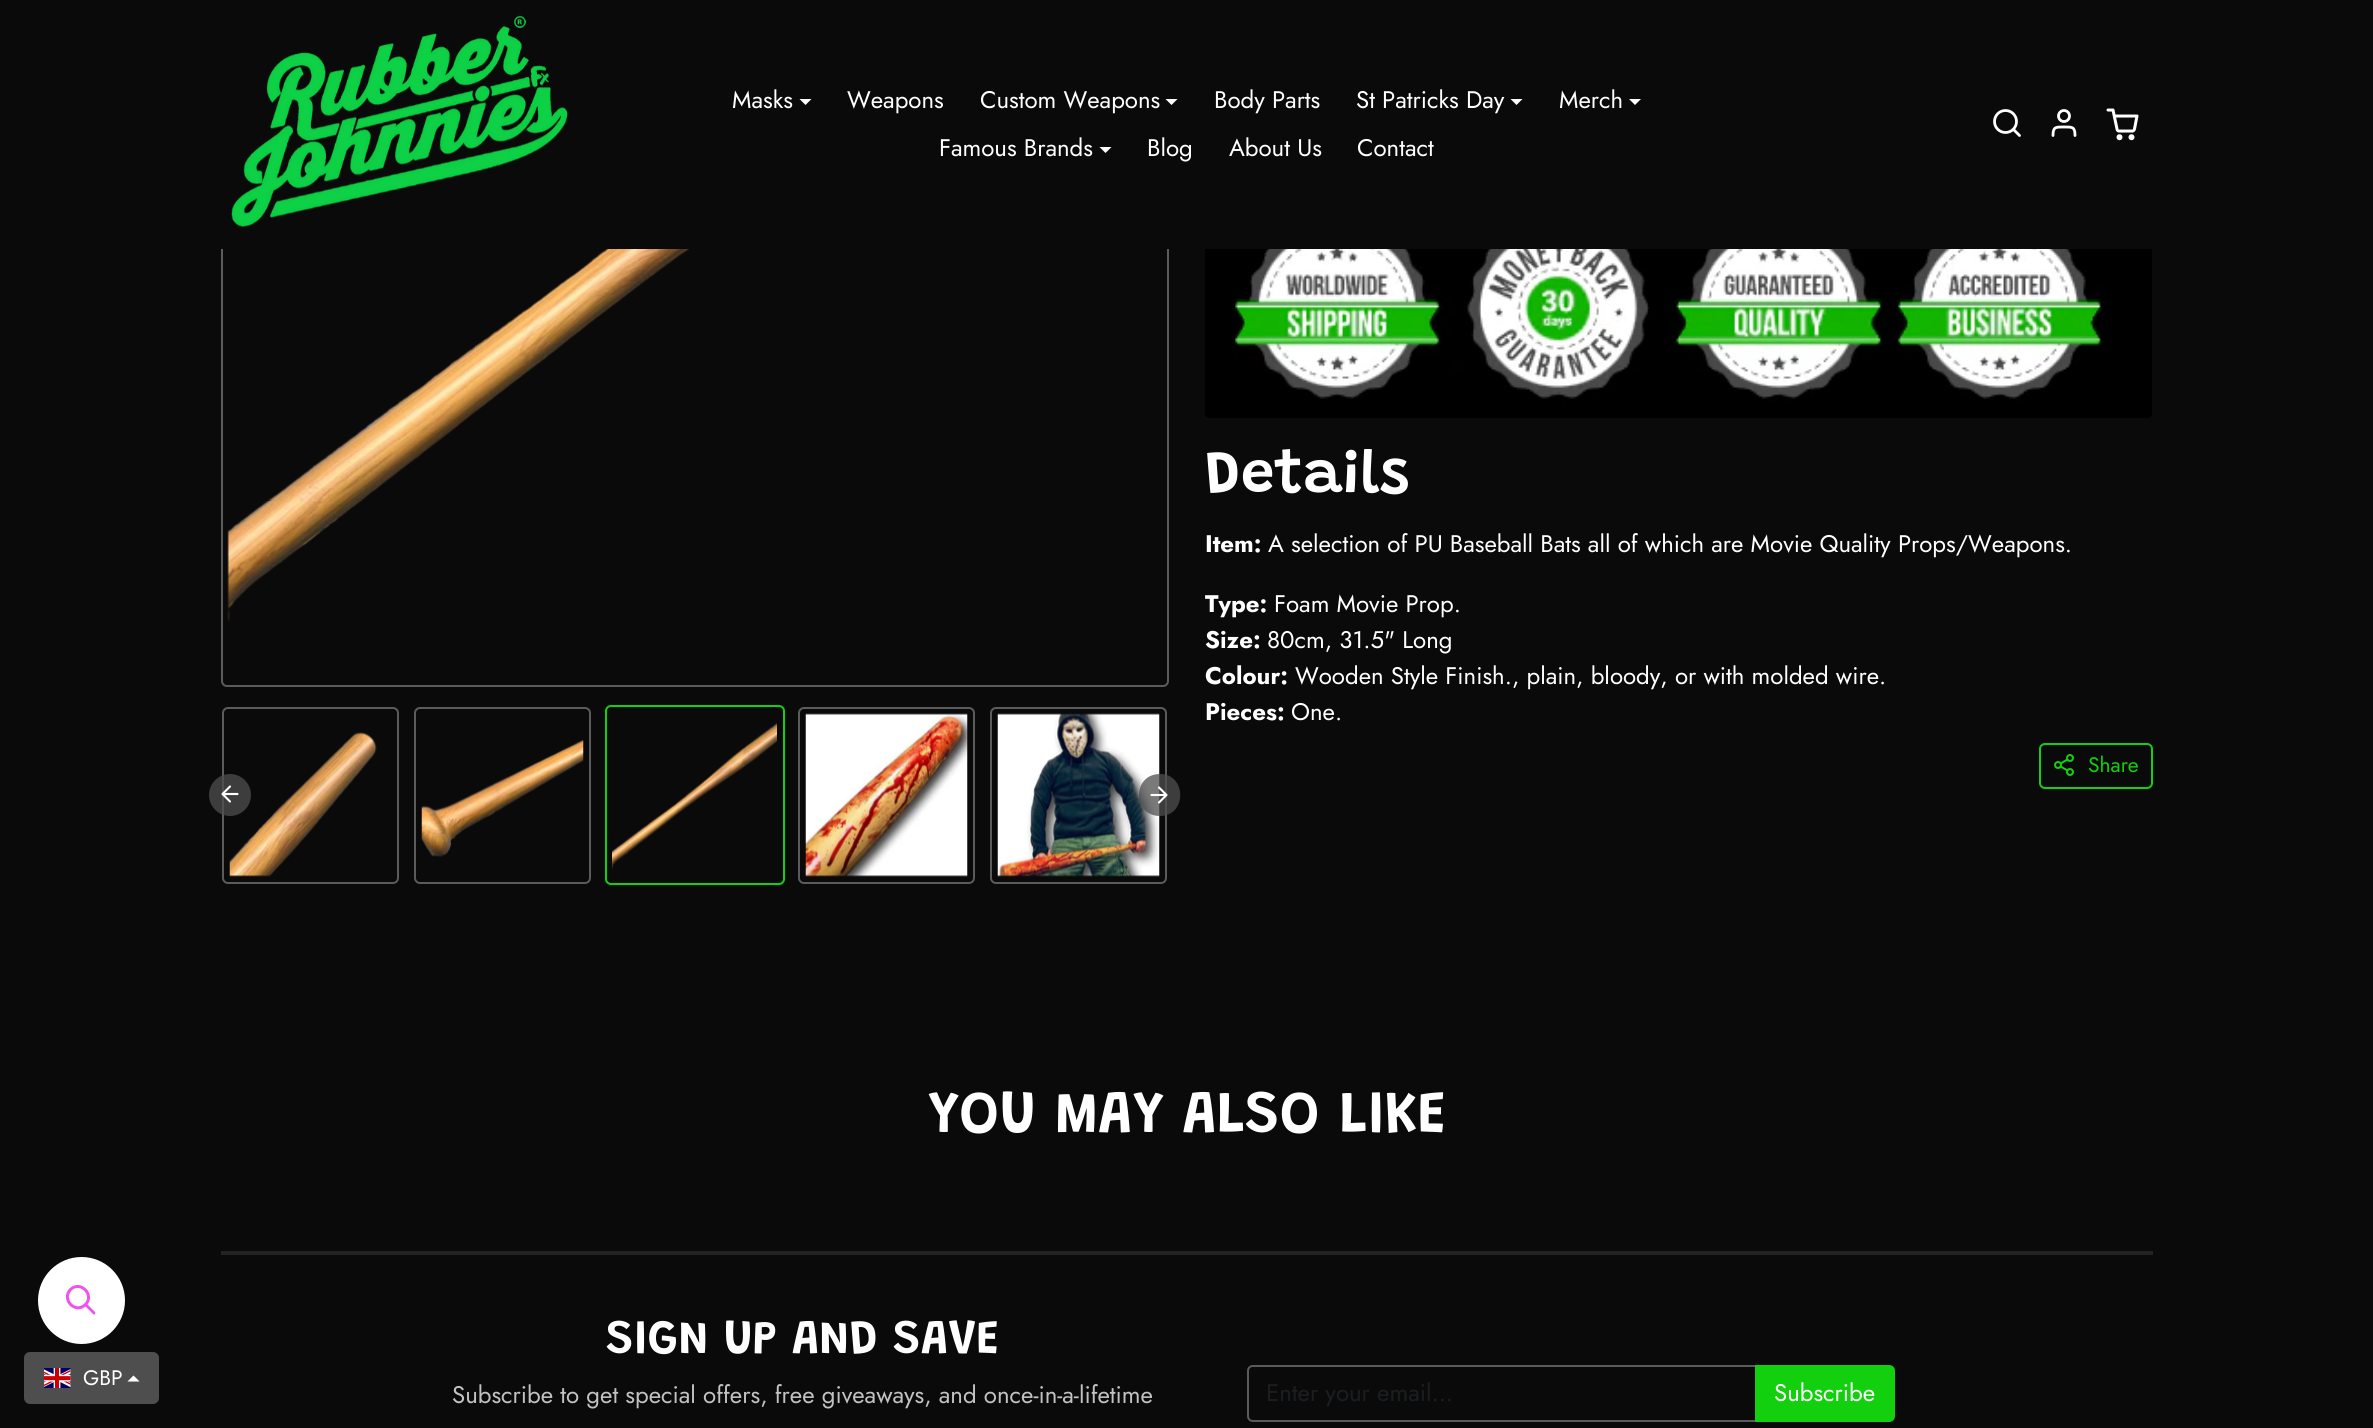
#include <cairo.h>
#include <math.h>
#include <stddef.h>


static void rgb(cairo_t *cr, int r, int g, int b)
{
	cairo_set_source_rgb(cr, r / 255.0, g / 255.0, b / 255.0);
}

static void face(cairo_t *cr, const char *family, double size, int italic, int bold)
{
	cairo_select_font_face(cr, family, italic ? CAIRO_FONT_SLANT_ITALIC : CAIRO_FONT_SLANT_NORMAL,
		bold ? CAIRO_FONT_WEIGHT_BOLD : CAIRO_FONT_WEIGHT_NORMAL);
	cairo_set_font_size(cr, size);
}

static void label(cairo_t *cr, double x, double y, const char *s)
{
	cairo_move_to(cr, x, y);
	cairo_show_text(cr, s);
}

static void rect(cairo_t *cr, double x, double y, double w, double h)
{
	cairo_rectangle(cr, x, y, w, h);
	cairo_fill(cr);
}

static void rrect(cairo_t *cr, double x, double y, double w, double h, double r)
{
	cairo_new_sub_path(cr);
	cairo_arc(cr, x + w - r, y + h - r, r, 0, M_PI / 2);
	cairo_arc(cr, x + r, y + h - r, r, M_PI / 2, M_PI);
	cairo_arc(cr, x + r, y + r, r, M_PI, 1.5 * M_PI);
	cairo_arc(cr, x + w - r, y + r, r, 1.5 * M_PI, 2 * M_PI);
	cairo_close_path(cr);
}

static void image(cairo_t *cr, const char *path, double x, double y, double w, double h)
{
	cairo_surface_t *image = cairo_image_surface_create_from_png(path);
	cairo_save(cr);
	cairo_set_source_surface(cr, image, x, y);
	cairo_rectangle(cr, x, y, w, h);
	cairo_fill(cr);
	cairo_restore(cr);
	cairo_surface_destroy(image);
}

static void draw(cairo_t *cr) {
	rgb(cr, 10, 10, 10);
	cairo_paint(cr);
	rrect(cr, 222, -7, 946, 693, 5);
	rgb(cr, 91, 91, 91);
	cairo_stroke(cr);
	rgb(cr, 10, 10, 10);
	rect(cr, 221, 0, 948, 249);
	image(cr, "image0.png", 231, 15, 337, 212);
	face(cr, "Jost", 24, 0, 0);
	rgb(cr, 255, 255, 255);
	label(cr, 732, 108, "Masks");
	cairo_new_path(cr);
	cairo_move_to(cr, 799.5, 99);
	cairo_line_to(cr, 811.5, 99);
	cairo_line_to(cr, 805.5, 105);
	cairo_close_path(cr);
	cairo_fill(cr);
	label(cr, 847, 108, "Weapons");
	label(cr, 980, 108, "Custom Weapons");
	cairo_new_path(cr);
	cairo_move_to(cr, 1165.5, 99);
	cairo_line_to(cr, 1177.5, 99);
	cairo_line_to(cr, 1171.5, 105);
	cairo_close_path(cr);
	cairo_fill(cr);
	label(cr, 1214, 108, "Body Parts");
	label(cr, 1356, 108, "St Patricks Day");
	cairo_new_path(cr);
	cairo_move_to(cr, 1510.5, 99);
	cairo_line_to(cr, 1522.5, 99);
	cairo_line_to(cr, 1516.5, 105);
	cairo_close_path(cr);
	cairo_fill(cr);
	label(cr, 1559, 108, "Merch");
	cairo_new_path(cr);
	cairo_move_to(cr, 1629, 99);
	cairo_line_to(cr, 1641, 99);
	cairo_line_to(cr, 1635, 105);
	cairo_close_path(cr);
	cairo_fill(cr);
	label(cr, 939, 156, "Famous Brands");
	cairo_new_path(cr);
	cairo_move_to(cr, 1099.5, 147);
	cairo_line_to(cr, 1111.5, 147);
	cairo_line_to(cr, 1105.5, 153);
	cairo_close_path(cr);
	cairo_fill(cr);
	label(cr, 1147, 156, "Blog");
	label(cr, 1229, 156, "About Us");
	label(cr, 1357, 156, "Contact");
	cairo_new_path(cr);
	cairo_arc(cr, 2005.5, 121.5, 11, 0, 2 * M_PI);
	cairo_set_line_width(cr, 2.8);
	cairo_stroke(cr);
	cairo_new_path(cr);
	cairo_move_to(cr, 2019.5, 135.5);
	cairo_line_to(cr, 2013.5, 129.5);
	cairo_set_line_cap(cr, CAIRO_LINE_CAP_ROUND);
	cairo_set_line_join(cr, CAIRO_LINE_JOIN_ROUND);
	cairo_stroke(cr);
	cairo_new_path(cr);
	cairo_move_to(cr, 2075, 135.5);
	cairo_curve_to(cr, 2075, 126.5, 2072, 127, 2064, 127);
	cairo_curve_to(cr, 2056, 127, 2053, 126.5, 2053, 135.5);
	cairo_stroke(cr);
	cairo_arc(cr, 2064, 116, 5.5, 0, 2 * M_PI);
	cairo_set_line_cap(cr, CAIRO_LINE_CAP_BUTT);
	cairo_set_line_join(cr, CAIRO_LINE_JOIN_MITER);
	cairo_stroke(cr);
	cairo_arc(cr, 2119.5, 137.2, 1.5, 0, 2 * M_PI);
	cairo_set_line_width(cr, 3);
	cairo_stroke(cr);
	cairo_arc(cr, 2131.5, 137.2, 1.5, 0, 2 * M_PI);
	cairo_stroke(cr);
	cairo_new_path(cr);
	cairo_move_to(cr, 2108, 110);
	cairo_line_to(cr, 2113, 110);
	cairo_line_to(cr, 2117, 129);
	cairo_curve_to(cr, 2117, 130.5, 2118.5, 131.5, 2120, 131);
	cairo_line_to(cr, 2131.5, 131);
	cairo_curve_to(cr, 2133, 131.5, 2134, 130.5, 2134.5, 129);
	cairo_line_to(cr, 2137, 116);
	cairo_line_to(cr, 2115, 116);
	cairo_set_line_cap(cr, CAIRO_LINE_CAP_ROUND);
	cairo_set_line_join(cr, CAIRO_LINE_JOIN_ROUND);
	cairo_stroke(cr);
	image(cr, "image1.png", 227, 249, 463, 373);
	rrect(cr, 223, 708, 175, 175, 5);
	rgb(cr, 91, 91, 91);
	cairo_set_line_width(cr, 2);
	cairo_set_line_cap(cr, CAIRO_LINE_CAP_BUTT);
	cairo_set_line_join(cr, CAIRO_LINE_JOIN_MITER);
	cairo_stroke(cr);
	image(cr, "image2.png", 229, 732, 148, 145);
	rrect(cr, 415, 708, 175, 175, 5);
	cairo_stroke(cr);
	image(cr, "image3.png", 421, 739, 163, 118);
	rrect(cr, 606, 706, 178, 178, 5);
	rgb(cr, 18, 208, 13);
	cairo_stroke(cr);
	image(cr, "image4.png", 612, 723, 165, 146);
	rrect(cr, 799, 708, 175, 175, 5);
	rgb(cr, 91, 91, 91);
	cairo_stroke(cr);
	image(cr, "image5.png", 805, 713, 163, 164);
	rrect(cr, 991, 708, 175, 175, 5);
	cairo_stroke(cr);
	image(cr, "image6.png", 997, 713, 163, 164);
	cairo_set_source_rgba(cr, 0.306, 0.306, 0.306, 0.75);
	cairo_arc(cr, 230, 795, 21, 0, 2 * M_PI);
	cairo_fill(cr);
	cairo_new_path(cr);
	cairo_move_to(cr, 237.5, 794);
	cairo_line_to(cr, 224, 794);
	cairo_move_to(cr, 230, 786.5);
	cairo_line_to(cr, 222.5, 794);
	cairo_line_to(cr, 230, 801.5);
	rgb(cr, 255, 255, 255);
	cairo_set_line_width(cr, 2.1);
	cairo_set_line_cap(cr, CAIRO_LINE_CAP_ROUND);
	cairo_set_line_join(cr, CAIRO_LINE_JOIN_ROUND);
	cairo_stroke(cr);
	cairo_set_source_rgba(cr, 0.306, 0.306, 0.306, 0.75);
	cairo_new_path(cr);
	cairo_move_to(cr, 1160, 816);
	cairo_curve_to(cr, 1132, 816, 1132, 774, 1160, 774);
	cairo_curve_to(cr, 1187, 774, 1187, 816, 1160, 816);
	cairo_close_path(cr);
	cairo_fill(cr);
	cairo_new_path(cr);
	cairo_move_to(cr, 1151.5, 795);
	cairo_line_to(cr, 1165, 795);
	cairo_move_to(cr, 1159, 802.5);
	cairo_line_to(cr, 1166.5, 795);
	cairo_line_to(cr, 1159, 787.5);
	rgb(cr, 255, 255, 255);
	cairo_stroke(cr);
	image(cr, "image7.png", 1205, 249, 947, 169);
	face(cr, "Grandstander SemiBold", 60, 0, 0);
	label(cr, 1205, 492, "Details");
	face(cr, "Jost", 24, 0, 1);
	label(cr, 1205, 552, "Item:");
	face(cr, "Jost", 24, 0, 0);
	label(cr, 1268, 552, "A selection of PU Baseball Bats all of which are Movie Quality Props/Weapons.");
	face(cr, "Jost", 24, 0, 1);
	label(cr, 1205, 612, "Type:");
	face(cr, "Jost", 24, 0, 0);
	label(cr, 1274, 612, "Foam Movie Prop.");
	face(cr, "Jost", 24, 0, 1);
	label(cr, 1205, 648, "Size:");
	face(cr, "Jost", 24, 0, 0);
	label(cr, 1267, 648, "80cm, 31.5\" Long");
	face(cr, "Jost", 24, 0, 1);
	label(cr, 1205, 684, "Colour:");
	face(cr, "Jost", 24, 0, 0);
	label(cr, 1295, 684, "Wooden Style Finish., plain, bloody, or with molded wire.");
	face(cr, "Jost", 24, 0, 1);
	label(cr, 1205, 720, "Pieces:");
	face(cr, "Jost", 24, 0, 0);
	label(cr, 1291, 720, "One.");
	rrect(cr, 2040, 744, 112, 44, 5);
	rgb(cr, 18, 208, 13);
	cairo_set_line_width(cr, 2);
	cairo_set_line_cap(cr, CAIRO_LINE_CAP_BUTT);
	cairo_set_line_join(cr, CAIRO_LINE_JOIN_MITER);
	cairo_stroke(cr);
	image(cr, "image8.png", 2054, 754, 20, 22);
	face(cr, "Jost", 21, 0, 0);
	label(cr, 2088, 772, "Share");
	face(cr, "Grandstander SemiBold", 60, 0, 0);
	rgb(cr, 255, 255, 255);
	label(cr, 927, 1132, "YOU MAY ALSO LIKE");
	rgb(cr, 35, 35, 35);
	rect(cr, 221, 1251, 1932, 4);
	rgb(cr, 255, 255, 255);
	cairo_new_path(cr);
	cairo_arc(cr, 81.5, 1300.5, 43.5, 0, 2 * M_PI);
	cairo_fill(cr);
	cairo_new_path(cr);
	cairo_move_to(cr, 70.5, 1289.5);
	cairo_curve_to(cr, 80.5, 1280, 95, 1295, 85.5, 1304.5);
	cairo_curve_to(cr, 75.5, 1314.5, 61, 1299.5, 70.5, 1289.5);
	cairo_close_path(cr);
	rgb(cr, 240, 82, 240);
	cairo_set_line_width(cr, 3);
	cairo_stroke(cr);
	cairo_new_path(cr);
	cairo_move_to(cr, 84.5, 1305.5);
	cairo_line_to(cr, 86.5, 1303.5);
	cairo_line_to(cr, 95, 1312);
	cairo_curve_to(cr, 96, 1313.5, 94, 1315.5, 93, 1314);
	cairo_close_path(cr);
	cairo_fill(cr);
	rgb(cr, 78, 78, 78);
	rrect(cr, 25, 1353, 133, 50, 5);
	cairo_fill_preserve(cr);
	cairo_set_line_width(cr, 2);
	cairo_stroke(cr);
	image(cr, "image9.png", 44, 1368, 27, 20);
	face(cr, "Jost", 21, 0, 0);
	rgb(cr, 255, 255, 255);
	label(cr, 83, 1385, "GBP");
	cairo_new_path(cr);
	cairo_move_to(cr, 139.5, 1381.5);
	cairo_line_to(cr, 127.5, 1381.5);
	cairo_line_to(cr, 133.5, 1375.5);
	cairo_close_path(cr);
	cairo_fill(cr);
	face(cr, "Grandstander SemiBold", 48, 0, 0);
	label(cr, 606, 1353, "SIGN UP AND SAVE");
	face(cr, "Jost", 24, 0, 0);
	rgb(cr, 194, 194, 194);
	label(cr, 452, 1403, "Subscribe to get special offers, free giveaways, and once-in-a-lifetime");
	cairo_new_path(cr);
	cairo_move_to(cr, 1253, 1366);
	cairo_line_to(cr, 1756, 1366);
	cairo_line_to(cr, 1756, 1421);
	cairo_line_to(cr, 1253, 1421);
	cairo_curve_to(cr, 1250, 1421, 1248, 1419, 1248, 1416);
	cairo_line_to(cr, 1248, 1371);
	cairo_curve_to(cr, 1248, 1368, 1250, 1366, 1253, 1366);
	cairo_close_path(cr);
	rgb(cr, 91, 91, 91);
	cairo_stroke(cr);
	rgb(cr, 27, 30, 33);
	label(cr, 1266, 1401, "Enter your email...");
	rgb(cr, 18, 208, 13);
	cairo_new_path(cr);
	cairo_move_to(cr, 1756, 1366);
	cairo_line_to(cr, 1889, 1366);
	cairo_curve_to(cr, 1892, 1366, 1894, 1368, 1894, 1371);
	cairo_line_to(cr, 1894, 1416);
	cairo_curve_to(cr, 1894, 1419, 1892, 1421, 1889, 1421);
	cairo_line_to(cr, 1756, 1421);
	cairo_close_path(cr);
	cairo_fill_preserve(cr);
	cairo_stroke(cr);
	rgb(cr, 255, 255, 255);
	label(cr, 1774, 1401, "Subscribe");
}

int main(void) {
	cairo_surface_t *surface = cairo_image_surface_create(CAIRO_FORMAT_RGB24, 2373, 1428);
	cairo_t *cr = cairo_create(surface);
	cairo_font_options_t *options = cairo_font_options_create();
	cairo_font_options_set_hint_metrics(options, CAIRO_HINT_METRICS_OFF);
	cairo_font_options_set_hint_style(options, CAIRO_HINT_STYLE_NONE);
	cairo_set_font_options(cr, options);
	cairo_set_miter_limit(cr, 4);
	draw(cr);
	cairo_surface_write_to_png(surface, "render.png");
	cairo_font_options_destroy(options);
	cairo_destroy(cr);
	cairo_surface_destroy(surface);
	return 0;
}
